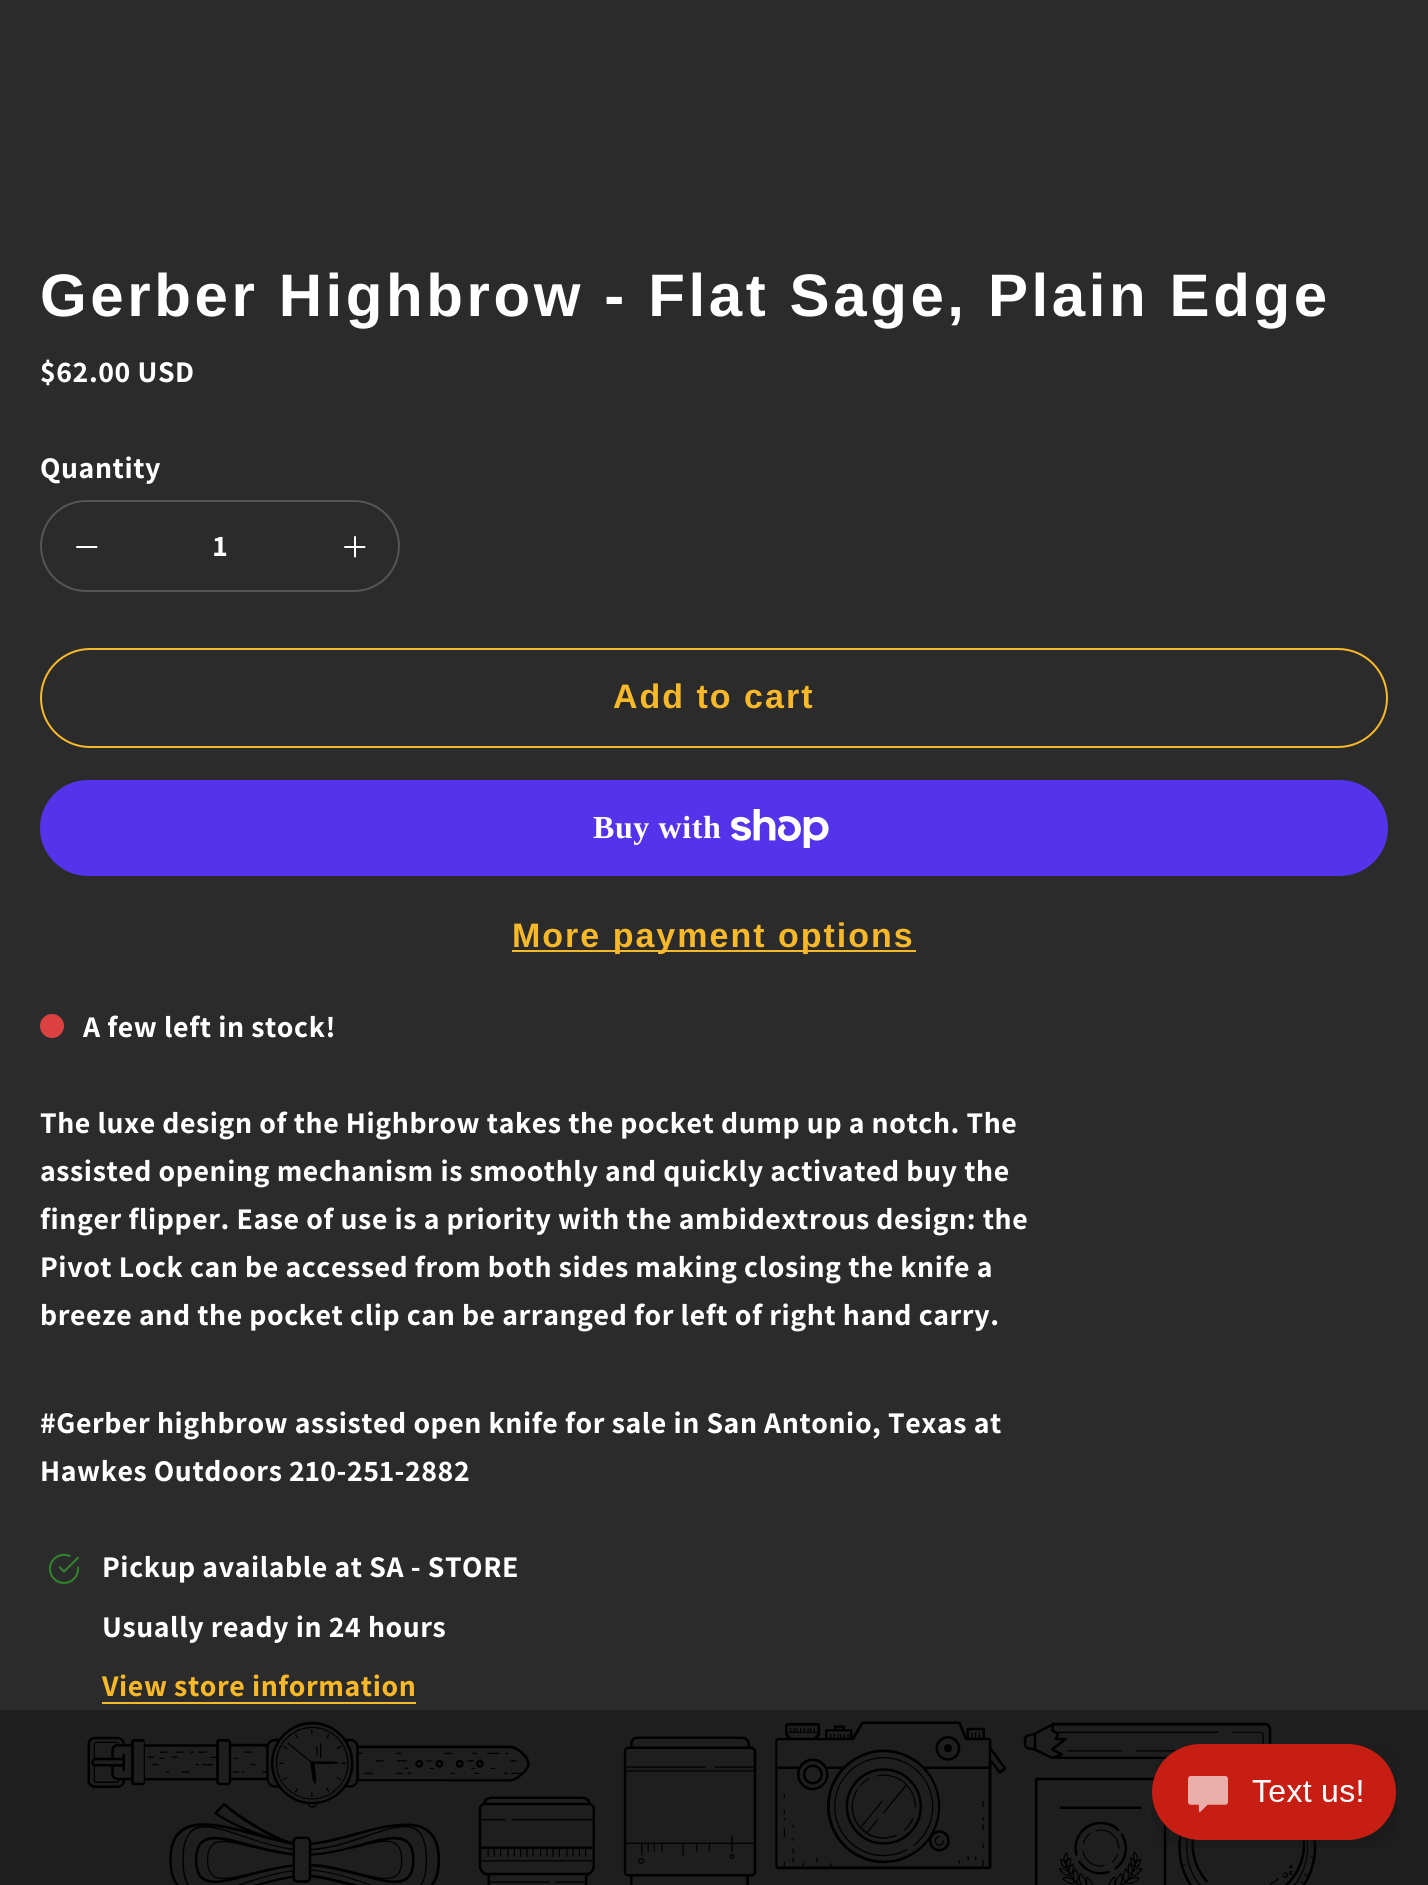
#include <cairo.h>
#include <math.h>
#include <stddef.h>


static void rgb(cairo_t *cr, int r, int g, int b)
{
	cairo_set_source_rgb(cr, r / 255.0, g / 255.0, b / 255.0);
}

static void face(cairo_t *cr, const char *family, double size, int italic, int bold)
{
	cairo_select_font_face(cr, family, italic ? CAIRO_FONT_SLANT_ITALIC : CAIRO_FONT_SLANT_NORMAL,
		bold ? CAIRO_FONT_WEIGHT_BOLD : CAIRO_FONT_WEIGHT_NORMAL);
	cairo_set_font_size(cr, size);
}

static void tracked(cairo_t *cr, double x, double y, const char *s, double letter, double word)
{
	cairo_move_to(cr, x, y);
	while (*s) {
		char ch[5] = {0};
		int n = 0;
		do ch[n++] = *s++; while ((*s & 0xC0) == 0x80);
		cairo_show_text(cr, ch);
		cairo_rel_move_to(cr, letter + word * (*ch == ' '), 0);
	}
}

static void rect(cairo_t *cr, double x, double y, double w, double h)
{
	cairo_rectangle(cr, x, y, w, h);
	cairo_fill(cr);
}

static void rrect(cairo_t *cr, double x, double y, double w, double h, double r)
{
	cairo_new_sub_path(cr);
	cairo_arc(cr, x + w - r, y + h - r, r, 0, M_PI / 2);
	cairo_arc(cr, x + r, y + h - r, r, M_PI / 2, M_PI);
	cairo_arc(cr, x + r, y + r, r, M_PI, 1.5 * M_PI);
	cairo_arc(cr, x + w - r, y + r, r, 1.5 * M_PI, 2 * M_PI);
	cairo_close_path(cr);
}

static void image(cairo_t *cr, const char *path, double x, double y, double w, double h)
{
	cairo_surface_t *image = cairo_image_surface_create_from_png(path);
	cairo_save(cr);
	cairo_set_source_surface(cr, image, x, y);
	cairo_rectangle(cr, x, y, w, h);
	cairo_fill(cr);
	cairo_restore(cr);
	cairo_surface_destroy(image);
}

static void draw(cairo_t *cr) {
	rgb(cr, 43, 43, 43);
	cairo_paint(cr);
	rgb(cr, 30, 30, 30);
	rect(cr, 0, 1710, 1428, 175);
	face(cr, "Liberation Sans", 60, 0, 1);
	rgb(cr, 255, 255, 255);
	tracked(cr, 40, 316, "Gerber Highbrow - Flat Sage, Plain Edge", 3.6, 0);
	face(cr, "Assistant", 30, 0, 1);
	tracked(cr, 40, 382, "$62.00 USD", 0.6, 0);
	tracked(cr, 40, 478, "Quantity", 0.6, 0);
	rrect(cr, 41, 501, 358, 90, 45);
	rgb(cr, 85, 85, 85);
	cairo_stroke(cr);
	cairo_new_path(cr);
	cairo_move_to(cr, 77, 547);
	cairo_line_to(cr, 96.5, 547);
	rgb(cr, 255, 255, 255);
	cairo_set_line_cap(cr, CAIRO_LINE_CAP_ROUND);
	cairo_set_line_join(cr, CAIRO_LINE_JOIN_ROUND);
	cairo_stroke(cr);
	tracked(cr, 213, 556, "1", 0.6, 0);
	cairo_new_path(cr);
	cairo_move_to(cr, 355, 537);
	cairo_line_to(cr, 355, 556.5);
	cairo_move_to(cr, 345, 547);
	cairo_line_to(cr, 364.5, 547);
	cairo_stroke(cr);
	rrect(cr, 41, 649, 1346, 98, 49);
	rgb(cr, 247, 184, 41);
	cairo_set_line_cap(cr, CAIRO_LINE_CAP_BUTT);
	cairo_set_line_join(cr, CAIRO_LINE_JOIN_MITER);
	cairo_stroke(cr);
	face(cr, "Liberation Sans", 34, 0, 1);
	tracked(cr, 613, 708, "Add to cart", 2, 0);
	rgb(cr, 84, 51, 235);
	rrect(cr, 40, 780, 1348, 96, 48);
	cairo_fill(cr);
	face(cr, "Liberation Serif", 32, 0, 1);
	rgb(cr, 255, 255, 255);
	tracked(cr, 593, 838, "Buy with", 0.6, 0);
	image(cr, "image0.png", 731, 809, 98, 39);
	rgb(cr, 247, 184, 41);
	rect(cr, 512, 950, 404, 2);
	face(cr, "Liberation Sans", 34, 0, 1);
	tracked(cr, 512, 947, "More payment options", 2, 0);
	rgb(cr, 221, 66, 66);
	cairo_new_path(cr);
	cairo_arc(cr, 52, 1026, 12, 0, 2 * M_PI);
	cairo_fill(cr);
	face(cr, "Assistant", 30, 0, 1);
	rgb(cr, 255, 255, 255);
	tracked(cr, 83, 1037, "A few left in stock!", 0.6, 0);
	tracked(cr, 40, 1133, "The luxe design of the Highbrow takes the pocket dump up a notch. The", 0.6, 0);
	tracked(cr, 40, 1181, "assisted opening mechanism is smoothly and quickly activated buy the", 0.6, 0);
	tracked(cr, 40, 1229, "finger flipper. Ease of use is a priority with the ambidextrous design: the", 0.6, 0);
	tracked(cr, 40, 1277, "Pivot Lock can be accessed from both sides making closing the knife a", 0.6, 0);
	tracked(cr, 40, 1325, "breeze and the pocket clip can be arranged for left of right hand carry.", 0.6, 0);
	tracked(cr, 40, 1433, "#Gerber highbrow assisted open knife for sale in San Antonio, Texas at", 0.6, 0);
	tracked(cr, 40, 1481, "Hawkes Outdoors 210-251-2882", 0.6, 0);
	image(cr, "image1.png", 49, 1553, 31, 31);
	tracked(cr, 102, 1577, "Pickup available at SA - STORE", 0.6, 0);
	tracked(cr, 102, 1637, "Usually ready in 24 hours", 0.6, 0);
	rgb(cr, 247, 184, 41);
	tracked(cr, 102, 1696, "View store information", 0.6, 0);
	rect(cr, 102, 1702, 314, 2);
	image(cr, "image2.png", 87, 1721, 1230, 164);
	image(cr, "image3.png", 1151, 1744, 246, 104);
}

int main(void) {
	cairo_surface_t *surface = cairo_image_surface_create(CAIRO_FORMAT_RGB24, 1428, 1885);
	cairo_t *cr = cairo_create(surface);
	cairo_font_options_t *options = cairo_font_options_create();
	cairo_font_options_set_hint_metrics(options, CAIRO_HINT_METRICS_OFF);
	cairo_font_options_set_hint_style(options, CAIRO_HINT_STYLE_NONE);
	cairo_set_font_options(cr, options);
	cairo_set_miter_limit(cr, 4);
	draw(cr);
	cairo_surface_write_to_png(surface, "render.png");
	cairo_font_options_destroy(options);
	cairo_destroy(cr);
	cairo_surface_destroy(surface);
	return 0;
}
